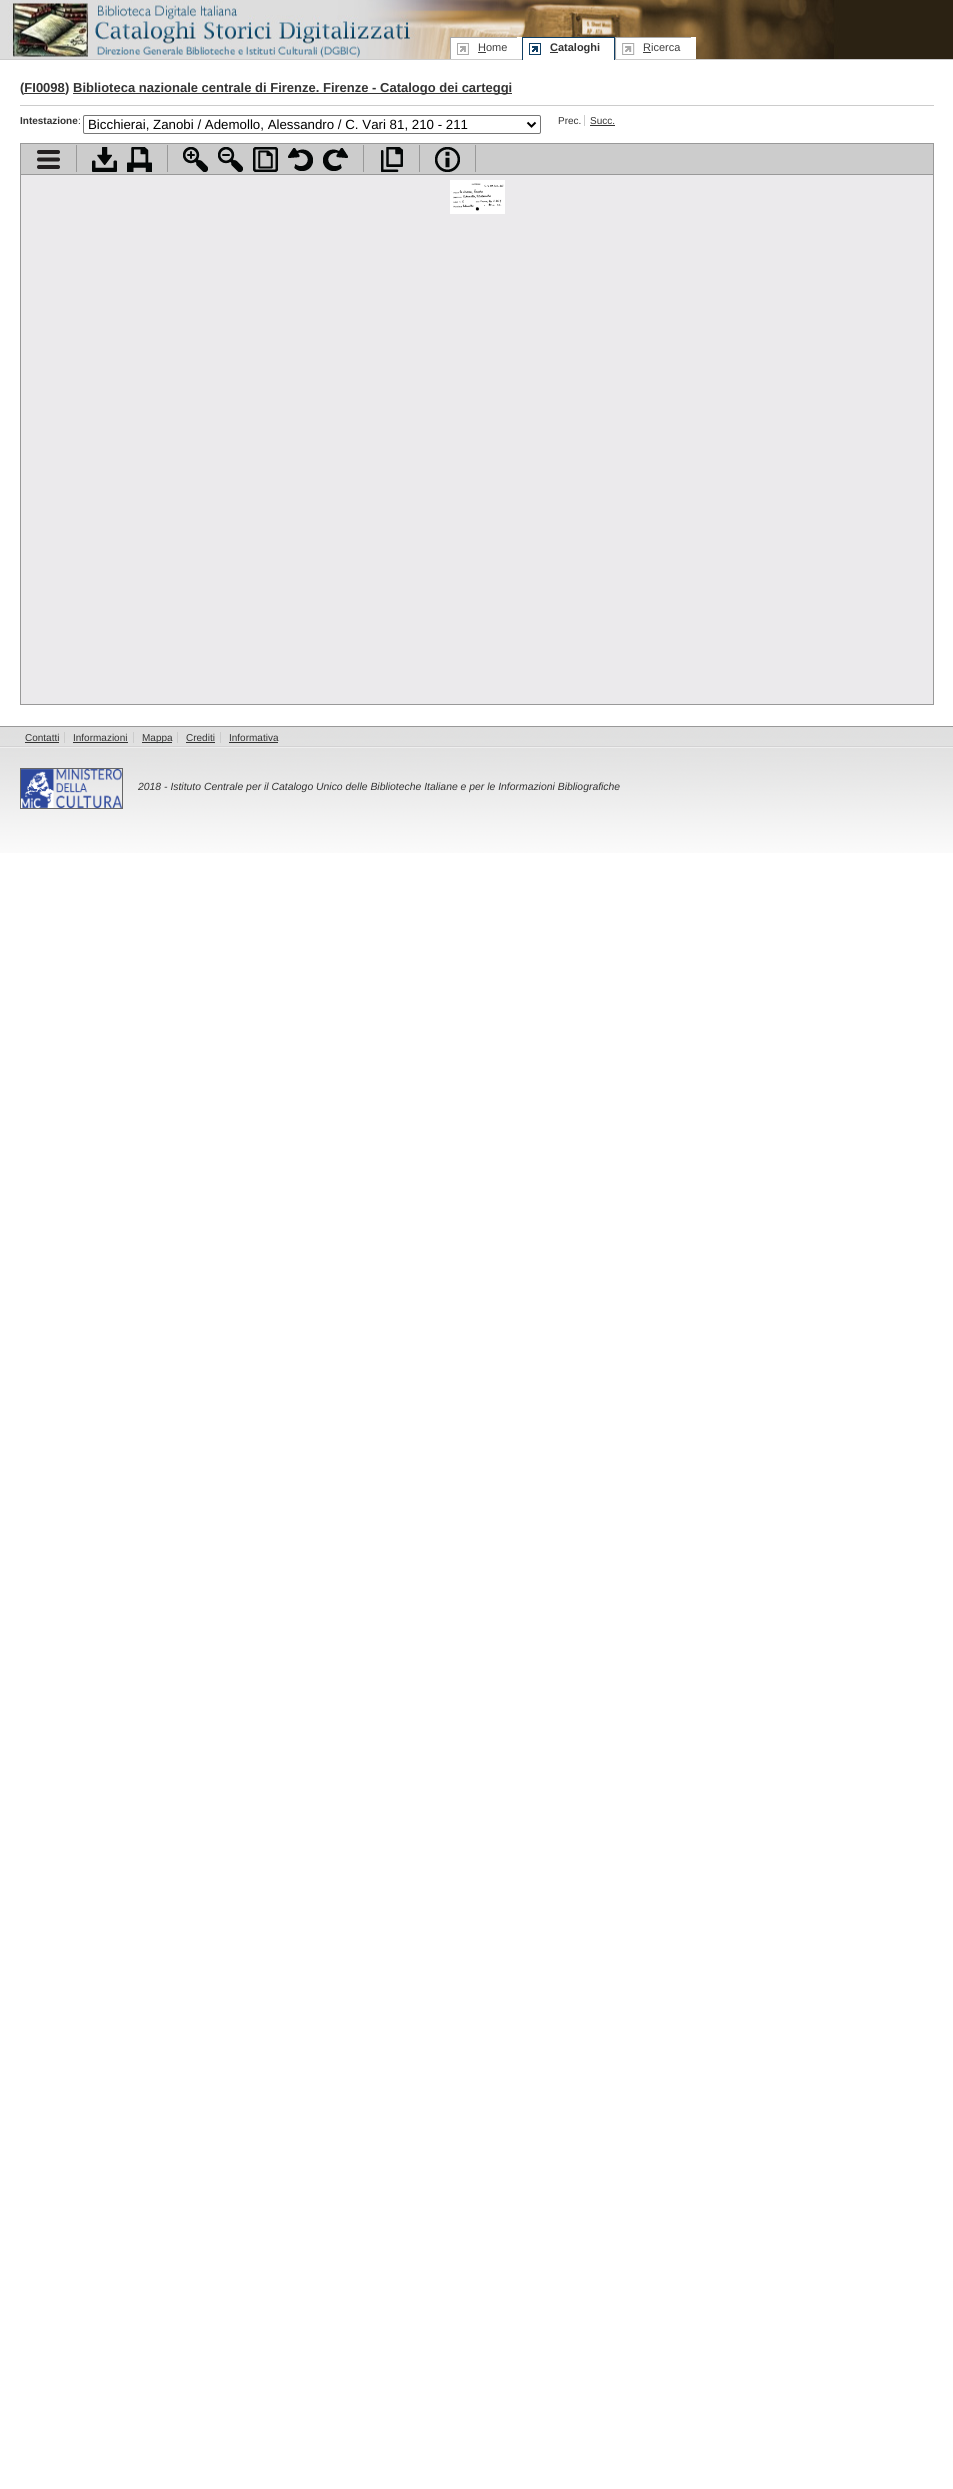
#include <cairo.h>
#include <math.h>
#include <stddef.h>


static void rgb(cairo_t *cr, int r, int g, int b)
{
	cairo_set_source_rgb(cr, r / 255.0, g / 255.0, b / 255.0);
}

static void face(cairo_t *cr, const char *family, double size, int italic, int bold)
{
	cairo_select_font_face(cr, family, italic ? CAIRO_FONT_SLANT_ITALIC : CAIRO_FONT_SLANT_NORMAL,
		bold ? CAIRO_FONT_WEIGHT_BOLD : CAIRO_FONT_WEIGHT_NORMAL);
	cairo_set_font_size(cr, size);
}

static void label(cairo_t *cr, double x, double y, const char *s)
{
	cairo_move_to(cr, x, y);
	cairo_show_text(cr, s);
}

static void rect(cairo_t *cr, double x, double y, double w, double h)
{
	cairo_rectangle(cr, x, y, w, h);
	cairo_fill(cr);
}

static void rrect(cairo_t *cr, double x, double y, double w, double h, double r)
{
	cairo_new_sub_path(cr);
	cairo_arc(cr, x + w - r, y + h - r, r, 0, M_PI / 2);
	cairo_arc(cr, x + r, y + h - r, r, M_PI / 2, M_PI);
	cairo_arc(cr, x + r, y + r, r, M_PI, 1.5 * M_PI);
	cairo_arc(cr, x + w - r, y + r, r, 1.5 * M_PI, 2 * M_PI);
	cairo_close_path(cr);
}

static void image(cairo_t *cr, const char *path, double x, double y, double w, double h)
{
	cairo_surface_t *image = cairo_image_surface_create_from_png(path);
	cairo_save(cr);
	cairo_set_source_surface(cr, image, x, y);
	cairo_rectangle(cr, x, y, w, h);
	cairo_fill(cr);
	cairo_restore(cr);
	cairo_surface_destroy(image);
}

static void draw(cairo_t *cr) {
	rgb(cr, 255, 255, 255);
	cairo_paint(cr);
	rgb(cr, 204, 204, 204);
	rect(cr, 0, 59, 953, 1);
	image(cr, "image0.png", 0, 0, 953, 59);
	image(cr, "image1.png", 450, 37, 67, 22);
	rgb(cr, 255, 255, 255);
	rect(cr, 517, 37, 5, 22);
	face(cr, "Liberation Sans", 11, 0, 0);
	rgb(cr, 63, 63, 63);
	label(cr, 478, 51, "Home");
	rect(cr, 478, 52, 8, 1);
	image(cr, "image2.png", 522, 37, 93, 23);
	rgb(cr, 15, 63, 101);
	rect(cr, 614, 38, 1, 22);
	rgb(cr, 51, 51, 51);
	rect(cr, 550, 52, 8, 1);
	face(cr, "Liberation Sans", 11, 0, 1);
	label(cr, 550, 51, "Cataloghi");
	image(cr, "image3.png", 615, 37, 76, 22);
	rgb(cr, 255, 255, 255);
	rect(cr, 691, 37, 5, 22);
	face(cr, "Liberation Sans", 11, 0, 0);
	rgb(cr, 63, 63, 63);
	label(cr, 643, 51, "Ricerca");
	rect(cr, 643, 52, 8, 1);
	face(cr, "Liberation Sans", 13, 0, 1);
	rgb(cr, 51, 51, 51);
	label(cr, 20, 92, "(FI0098");
	rect(cr, 24, 93, 41, 1);
	label(cr, 65, 92, ")");
	rect(cr, 73, 93, 439, 1);
	label(cr, 73, 92, "Biblioteca nazionale centrale di Firenze. Firenze - Catalogo dei carteggi");
	rgb(cr, 204, 204, 204);
	rect(cr, 20, 105, 914, 1);
	face(cr, "Liberation Sans", 10, 0, 1);
	rgb(cr, 51, 51, 51);
	label(cr, 20, 124, "Intestazione");
	face(cr, "Liberation Sans", 10, 0, 0);
	label(cr, 78, 124, ":");
	rrect(cr, 83.5, 115.5, 457, 18, 1.5);
	rgb(cr, 118, 118, 118);
	cairo_set_line_width(cr, 1);
	cairo_stroke(cr);
	cairo_new_path(cr);
	cairo_move_to(cr, 527.5, 122.5);
	cairo_line_to(cr, 531.5, 126.5);
	cairo_line_to(cr, 535.5, 122.5);
	rgb(cr, 0, 0, 0);
	cairo_set_line_width(cr, 2);
	cairo_stroke(cr);
	face(cr, "Liberation Sans", 13.3, 0, 0);
	label(cr, 88, 129, "Bicchierai, Zanobi / Ademollo, Alessandro / C. Vari 81, 210 - 211");
	face(cr, "Liberation Sans", 10, 0, 0);
	rgb(cr, 51, 51, 51);
	label(cr, 558, 124, "Prec.");
	rgb(cr, 204, 204, 204);
	rect(cr, 584, 115, 1, 11);
	rgb(cr, 51, 51, 51);
	label(cr, 590, 124, "Succ.");
	rect(cr, 590, 125, 25, 1);
	rgb(cr, 204, 204, 204);
	cairo_rectangle(cr, 20.5, 143.5, 913, 31);
	cairo_fill_preserve(cr);
	rgb(cr, 153, 153, 153);
	cairo_set_line_width(cr, 1);
	cairo_stroke(cr);
	rect(cr, 76, 145, 1, 27);
	image(cr, "image4.png", 37, 150, 23, 19);
	rect(cr, 167, 145, 1, 27);
	image(cr, "image5.png", 92, 147, 25, 25);
	image(cr, "image6.png", 127, 147, 25, 25);
	rect(cr, 363, 145, 1, 27);
	image(cr, "image7.png", 183, 147, 25, 25);
	image(cr, "image8.png", 218, 147, 25, 25);
	image(cr, "image9.png", 253, 147, 25, 25);
	image(cr, "image10.png", 288, 148, 25, 23);
	image(cr, "image11.png", 323, 148, 25, 23);
	rect(cr, 419, 145, 1, 27);
	image(cr, "image12.png", 381, 147, 22, 25);
	rect(cr, 475, 145, 1, 27);
	image(cr, "image13.png", 435, 147, 25, 25);
	rgb(cr, 235, 234, 236);
	rect(cr, 21, 175, 912, 529);
	rgb(cr, 153, 153, 153);
	rect(cr, 933, 175, 1, 530);
	rect(cr, 20, 704, 914, 1);
	rect(cr, 20, 175, 1, 530);
	image(cr, "image14.png", 450, 180, 55, 34);
	image(cr, "image15.png", 0, 727, 953, 126);
	rect(cr, 0, 726, 953, 1);
	image(cr, "image16.png", 0, 746, 953, 2);
	rgb(cr, 51, 51, 51);
	label(cr, 25, 741, "Contatti");
	rgb(cr, 204, 204, 204);
	rect(cr, 64, 732, 1, 11);
	rgb(cr, 51, 51, 51);
	rect(cr, 25, 742, 34, 1);
	label(cr, 73, 741, "Informazioni");
	rgb(cr, 204, 204, 204);
	rect(cr, 133, 732, 1, 11);
	rgb(cr, 51, 51, 51);
	rect(cr, 73, 742, 55, 1);
	rect(cr, 142, 742, 30, 1);
	label(cr, 142, 741, "Mappa");
	rgb(cr, 204, 204, 204);
	rect(cr, 177, 732, 1, 11);
	rgb(cr, 51, 51, 51);
	label(cr, 186, 741, "Crediti");
	rgb(cr, 204, 204, 204);
	rect(cr, 220, 732, 1, 11);
	rgb(cr, 51, 51, 51);
	rect(cr, 186, 742, 29, 1);
	label(cr, 229, 741, "Informativa");
	rect(cr, 229, 742, 49, 1);
	cairo_rectangle(cr, 20.5, 768.5, 102, 40);
	rgb(cr, 102, 102, 102);
	cairo_stroke(cr);
	image(cr, "image17.png", 21, 769, 101, 39);
	face(cr, "Liberation Sans", 10.4, 1, 0);
	rgb(cr, 51, 51, 51);
	label(cr, 138, 790, "2018 - Istituto Centrale per il Catalogo Unico delle Biblioteche Italiane e per le Informazioni Bibliografiche");
}

int main(void) {
	cairo_surface_t *surface = cairo_image_surface_create(CAIRO_FORMAT_RGB24, 953, 2489);
	cairo_t *cr = cairo_create(surface);
	cairo_font_options_t *options = cairo_font_options_create();
	cairo_font_options_set_hint_metrics(options, CAIRO_HINT_METRICS_OFF);
	cairo_font_options_set_hint_style(options, CAIRO_HINT_STYLE_NONE);
	cairo_set_font_options(cr, options);
	cairo_set_miter_limit(cr, 4);
	draw(cr);
	cairo_surface_write_to_png(surface, "render.png");
	cairo_font_options_destroy(options);
	cairo_destroy(cr);
	cairo_surface_destroy(surface);
	return 0;
}
